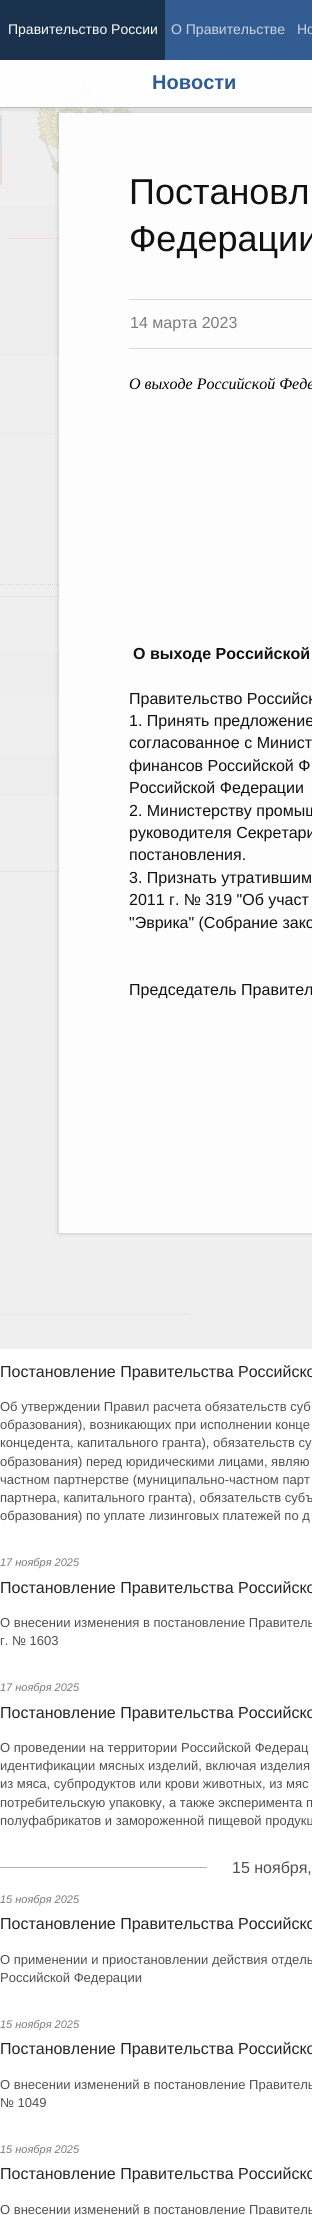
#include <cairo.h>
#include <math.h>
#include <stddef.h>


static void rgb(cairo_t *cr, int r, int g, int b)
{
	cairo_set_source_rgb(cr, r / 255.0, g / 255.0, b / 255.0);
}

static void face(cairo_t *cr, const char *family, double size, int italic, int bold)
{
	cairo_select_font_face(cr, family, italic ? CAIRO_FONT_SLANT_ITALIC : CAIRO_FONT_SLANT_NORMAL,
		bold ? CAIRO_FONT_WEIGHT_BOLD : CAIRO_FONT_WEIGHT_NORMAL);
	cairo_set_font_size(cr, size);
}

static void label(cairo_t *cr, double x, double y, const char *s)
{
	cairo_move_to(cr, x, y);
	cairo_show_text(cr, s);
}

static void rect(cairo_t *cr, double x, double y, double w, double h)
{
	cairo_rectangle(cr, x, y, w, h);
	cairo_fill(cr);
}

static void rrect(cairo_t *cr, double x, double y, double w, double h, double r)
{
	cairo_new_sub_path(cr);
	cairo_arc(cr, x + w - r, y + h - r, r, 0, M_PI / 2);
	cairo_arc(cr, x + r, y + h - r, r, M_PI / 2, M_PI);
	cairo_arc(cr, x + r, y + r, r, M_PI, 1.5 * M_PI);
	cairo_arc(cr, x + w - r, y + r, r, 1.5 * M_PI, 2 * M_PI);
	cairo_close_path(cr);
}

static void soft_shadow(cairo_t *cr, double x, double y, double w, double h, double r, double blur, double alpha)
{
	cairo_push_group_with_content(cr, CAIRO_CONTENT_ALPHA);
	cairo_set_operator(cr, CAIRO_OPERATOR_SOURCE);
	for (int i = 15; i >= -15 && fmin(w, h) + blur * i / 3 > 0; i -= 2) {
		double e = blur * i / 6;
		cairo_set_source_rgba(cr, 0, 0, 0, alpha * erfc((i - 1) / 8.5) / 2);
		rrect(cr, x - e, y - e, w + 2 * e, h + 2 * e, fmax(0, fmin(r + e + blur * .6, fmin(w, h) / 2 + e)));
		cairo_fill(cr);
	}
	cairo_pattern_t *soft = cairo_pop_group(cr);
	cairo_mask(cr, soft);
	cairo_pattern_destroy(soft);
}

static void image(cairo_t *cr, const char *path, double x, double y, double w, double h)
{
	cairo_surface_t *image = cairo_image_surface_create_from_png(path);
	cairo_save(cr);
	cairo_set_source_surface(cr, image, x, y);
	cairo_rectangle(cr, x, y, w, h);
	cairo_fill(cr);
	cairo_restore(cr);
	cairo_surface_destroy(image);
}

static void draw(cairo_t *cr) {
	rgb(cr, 255, 255, 255);
	cairo_paint(cr);
	rgb(cr, 229, 229, 229);
	rect(cr, 0, 80, 2, 35);
	rgb(cr, 70, 122, 183);
	rect(cr, 0, 115, 2, 35);
	rgb(cr, 233, 75, 61);
	rect(cr, 0, 150, 2, 35);
	image(cr, "image0.png", 37, 80, 94, 95);
	rgb(cr, 239, 239, 239);
	rect(cr, 0, 207, 59, 149);
	cairo_new_path(cr);
	cairo_move_to(cr, 8, 238.5);
	cairo_line_to(cr, 158, 238.5);
	rgb(cr, 215, 24, 8);
	cairo_set_line_width(cr, 1);
	cairo_set_dash(cr, (double[]){1, 1}, 2, 0);
	cairo_stroke(cr);
	rgb(cr, 222, 222, 221);
	rect(cr, 0, 433, 59, 1);
	rgb(cr, 163, 163, 163);
	rect(cr, 0, 596, 59, 1);
	cairo_new_path(cr);
	cairo_move_to(cr, 0, 584.5);
	cairo_line_to(cr, 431, 584.5);
	rgb(cr, 32, 78, 138);
	cairo_stroke(cr);
	rgb(cr, 239, 239, 239);
	rect(cr, 0, 653, 59, 43);
	rect(cr, 0, 753, 59, 43);
	rgb(cr, 176, 176, 176);
	rect(cr, 0, 871, 59, 1);
	rect(cr, 0, 1314, 189, 1);
	cairo_set_source_rgba(cr, 0.925, 0.925, 0.925, 0.87);
	rect(cr, 0, 60, 312, 1289);
	rgb(cr, 0, 0, 0);
	soft_shadow(cr, 58, 112, 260, 1122, 0, 2, 0.14);
	cairo_rectangle(cr, -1.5, -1.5, 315, 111);
	cairo_set_source_rgba(cr, 0.196, 0.196, 0.196, 0.07);
	cairo_set_line_width(cr, 3);
	cairo_set_dash(cr, NULL, 0, 0);
	cairo_stroke(cr);
	rgb(cr, 50, 92, 146);
	rect(cr, 165, 0, 147, 60);
	rgb(cr, 25, 49, 76);
	rect(cr, 0, 0, 165, 60);
	face(cr, "Liberation Sans", 14, 0, 0);
	rgb(cr, 255, 255, 255);
	label(cr, 8, 34, "Правительство России");
	rgb(cr, 205, 214, 225);
	label(cr, 171, 34, "О Правительстве");
	label(cr, 297, 34, "Но");
	cairo_set_source_rgba(cr, 1, 1, 1, 0.95);
	rect(cr, 0, 60, 312, 47);
	rgb(cr, 186, 186, 186);
	rect(cr, 0, 107, 312, 1);
	face(cr, "Liberation Sans", 20, 0, 1);
	rgb(cr, 48, 91, 148);
	label(cr, 152, 89, "Новости");
	rgb(cr, 253, 253, 253);
	rect(cr, 59, 113, 253, 1120);
	face(cr, "Liberation Sans", 36, 0, 0);
	rgb(cr, 17, 17, 17);
	label(cr, 129, 204, "Постановл");
	label(cr, 129, 251, "Федерации");
	rgb(cr, 220, 220, 220);
	rect(cr, 129, 299, 183, 1);
	rect(cr, 129, 348, 183, 1);
	face(cr, "Liberation Sans", 16, 0, 0);
	rgb(cr, 123, 123, 123);
	label(cr, 130, 328, "14 марта 2023");
	face(cr, "Liberation Serif", 16, 1, 0);
	rgb(cr, 0, 0, 0);
	label(cr, 129, 389, "О выходе Российской Феде");
	face(cr, "Liberation Sans", 16, 0, 1);
	rgb(cr, 17, 17, 17);
	label(cr, 133, 659, "О выходе Российской");
	face(cr, "Liberation Sans", 16, 0, 0);
	label(cr, 129, 704, "Правительство Российск");
	label(cr, 129, 726, "1. Принять предложение");
	label(cr, 129, 748, "согласованное с Минист");
	label(cr, 129, 771, "финансов Российской Ф");
	label(cr, 129, 793, "Российской Федерации");
	label(cr, 129, 816, "2. Министерству промыш");
	label(cr, 129, 838, "руководителя Секретари");
	label(cr, 129, 860, "постановления.");
	label(cr, 129, 883, "3. Признать утратившим");
	label(cr, 129, 905, "2011 г. № 319 \"Об участ");
	label(cr, 129, 928, "\"Эврика\" (Собрание зако");
	label(cr, 129, 995, "Председатель Правител");
	rgb(cr, 38, 38, 38);
	label(cr, 0, 1377, "Постановление Правительства Российско");
	face(cr, "Liberation Sans", 13, 0, 0);
	rgb(cr, 80, 80, 80);
	label(cr, 0, 1411, "Об утверждении Правил расчета обязательств суб");
	label(cr, 0, 1429, "образования), возникающих при исполнении конце");
	label(cr, 0, 1447, "концедента, капитального гранта), обязательств су");
	label(cr, 0, 1466, "образования) перед юридическими лицами, являю");
	label(cr, 0, 1484, "частном партнерстве (муниципально-частном парт");
	label(cr, 0, 1502, "партнера, капитального гранта), обязательств субъ");
	label(cr, 0, 1520, "образования) по уплате лизинговых платежей по д");
	face(cr, "Liberation Sans", 11, 1, 0);
	rgb(cr, 123, 123, 123);
	label(cr, 0, 1566, "17 ноября 2025");
	face(cr, "Liberation Sans", 16, 0, 0);
	rgb(cr, 38, 38, 38);
	label(cr, 0, 1593, "Постановление Правительства Российско");
	face(cr, "Liberation Sans", 13, 0, 0);
	rgb(cr, 80, 80, 80);
	label(cr, 0, 1627, "О внесении изменения в постановление Правитель");
	label(cr, 0, 1645, "г. № 1603");
	face(cr, "Liberation Sans", 11, 1, 0);
	rgb(cr, 123, 123, 123);
	label(cr, 0, 1691, "17 ноября 2025");
	face(cr, "Liberation Sans", 16, 0, 0);
	rgb(cr, 38, 38, 38);
	label(cr, 0, 1718, "Постановление Правительства Российско");
	face(cr, "Liberation Sans", 13, 0, 0);
	rgb(cr, 80, 80, 80);
	label(cr, 0, 1752, "О проведении на территории Российской Федерац");
	label(cr, 0, 1770, "идентификации мясных изделий, включая изделия");
	label(cr, 0, 1788, "из мяса, субпродуктов или крови животных, из мяс");
	label(cr, 0, 1807, "потребительскую упаковку, а также эксперимента п");
	label(cr, 0, 1825, "полуфабрикатов и замороженной пищевой продукц");
	rgb(cr, 176, 176, 176);
	rect(cr, 0, 1867, 207, 1);
	face(cr, "Liberation Sans", 16, 0, 0);
	rgb(cr, 80, 80, 80);
	label(cr, 232, 1873, "15 ноября,");
	face(cr, "Liberation Sans", 11, 1, 0);
	rgb(cr, 123, 123, 123);
	label(cr, 0, 1903, "15 ноября 2025");
	face(cr, "Liberation Sans", 16, 0, 0);
	rgb(cr, 38, 38, 38);
	label(cr, 0, 1929, "Постановление Правительства Российско");
	face(cr, "Liberation Sans", 13, 0, 0);
	rgb(cr, 80, 80, 80);
	label(cr, 0, 1964, "О применении и приостановлении действия отдель");
	label(cr, 0, 1982, "Российской Федерации");
	face(cr, "Liberation Sans", 11, 1, 0);
	rgb(cr, 123, 123, 123);
	label(cr, 0, 2028, "15 ноября 2025");
	face(cr, "Liberation Sans", 16, 0, 0);
	rgb(cr, 38, 38, 38);
	label(cr, 0, 2054, "Постановление Правительства Российско");
	face(cr, "Liberation Sans", 13, 0, 0);
	rgb(cr, 80, 80, 80);
	label(cr, 0, 2089, "О внесении изменений в постановление Правитель");
	label(cr, 0, 2107, "№ 1049");
	face(cr, "Liberation Sans", 11, 1, 0);
	rgb(cr, 123, 123, 123);
	label(cr, 0, 2153, "15 ноября 2025");
	face(cr, "Liberation Sans", 16, 0, 0);
	rgb(cr, 38, 38, 38);
	label(cr, 0, 2179, "Постановление Правительства Российско");
	face(cr, "Liberation Sans", 13, 0, 0);
	rgb(cr, 80, 80, 80);
	label(cr, 0, 2214, "О внесении изменений в постановление Правитель");
}

int main(void) {
	cairo_surface_t *surface = cairo_image_surface_create(CAIRO_FORMAT_RGB24, 312, 2215);
	cairo_t *cr = cairo_create(surface);
	cairo_font_options_t *options = cairo_font_options_create();
	cairo_font_options_set_hint_metrics(options, CAIRO_HINT_METRICS_OFF);
	cairo_font_options_set_hint_style(options, CAIRO_HINT_STYLE_NONE);
	cairo_set_font_options(cr, options);
	cairo_set_miter_limit(cr, 4);
	draw(cr);
	cairo_surface_write_to_png(surface, "render.png");
	cairo_font_options_destroy(options);
	cairo_destroy(cr);
	cairo_surface_destroy(surface);
	return 0;
}
